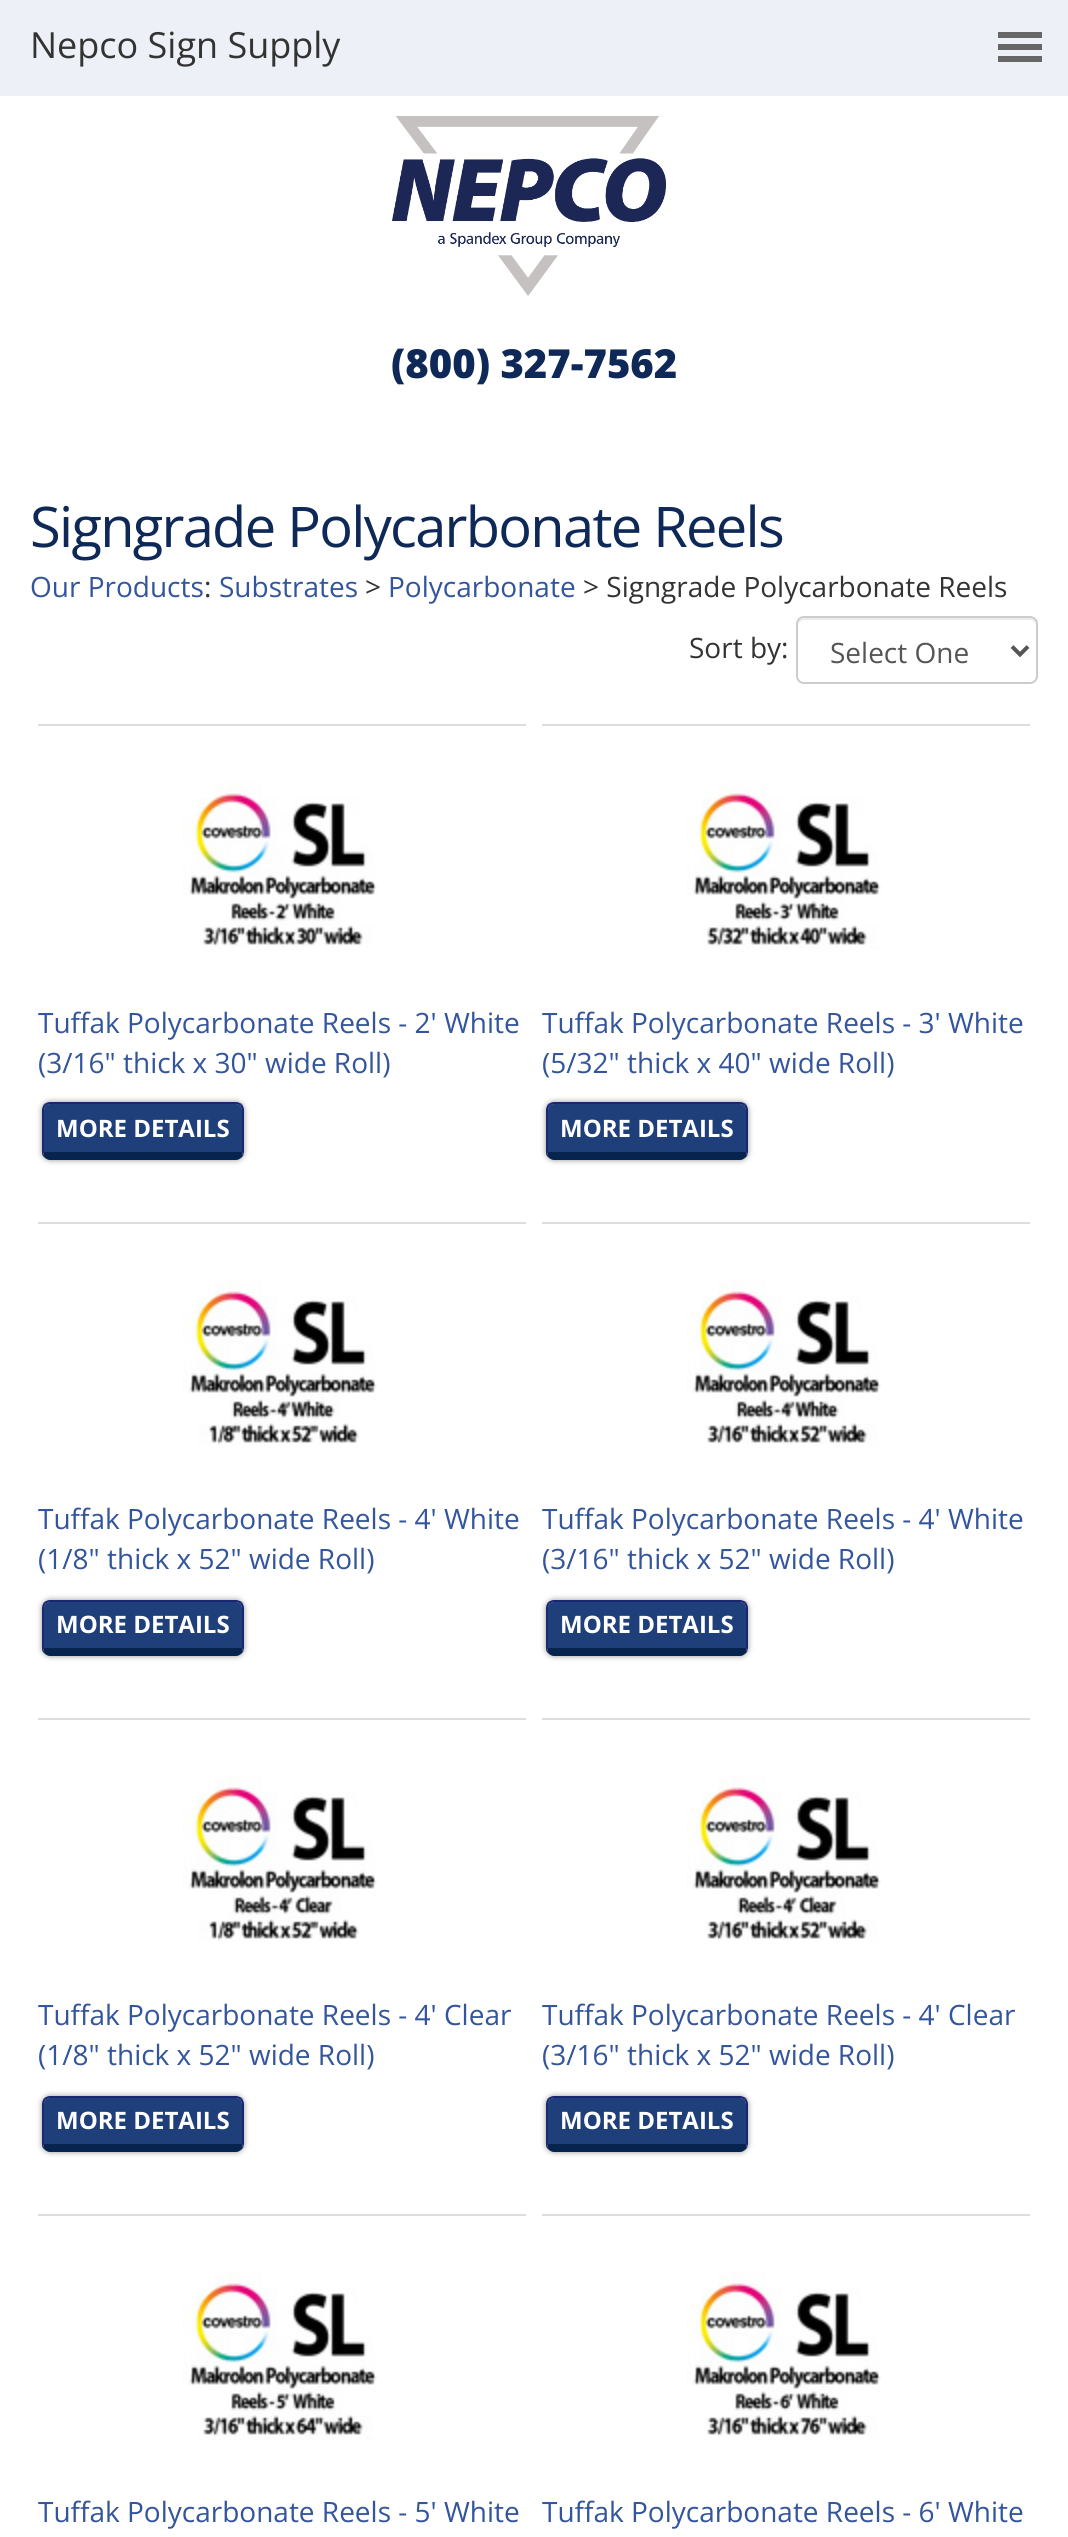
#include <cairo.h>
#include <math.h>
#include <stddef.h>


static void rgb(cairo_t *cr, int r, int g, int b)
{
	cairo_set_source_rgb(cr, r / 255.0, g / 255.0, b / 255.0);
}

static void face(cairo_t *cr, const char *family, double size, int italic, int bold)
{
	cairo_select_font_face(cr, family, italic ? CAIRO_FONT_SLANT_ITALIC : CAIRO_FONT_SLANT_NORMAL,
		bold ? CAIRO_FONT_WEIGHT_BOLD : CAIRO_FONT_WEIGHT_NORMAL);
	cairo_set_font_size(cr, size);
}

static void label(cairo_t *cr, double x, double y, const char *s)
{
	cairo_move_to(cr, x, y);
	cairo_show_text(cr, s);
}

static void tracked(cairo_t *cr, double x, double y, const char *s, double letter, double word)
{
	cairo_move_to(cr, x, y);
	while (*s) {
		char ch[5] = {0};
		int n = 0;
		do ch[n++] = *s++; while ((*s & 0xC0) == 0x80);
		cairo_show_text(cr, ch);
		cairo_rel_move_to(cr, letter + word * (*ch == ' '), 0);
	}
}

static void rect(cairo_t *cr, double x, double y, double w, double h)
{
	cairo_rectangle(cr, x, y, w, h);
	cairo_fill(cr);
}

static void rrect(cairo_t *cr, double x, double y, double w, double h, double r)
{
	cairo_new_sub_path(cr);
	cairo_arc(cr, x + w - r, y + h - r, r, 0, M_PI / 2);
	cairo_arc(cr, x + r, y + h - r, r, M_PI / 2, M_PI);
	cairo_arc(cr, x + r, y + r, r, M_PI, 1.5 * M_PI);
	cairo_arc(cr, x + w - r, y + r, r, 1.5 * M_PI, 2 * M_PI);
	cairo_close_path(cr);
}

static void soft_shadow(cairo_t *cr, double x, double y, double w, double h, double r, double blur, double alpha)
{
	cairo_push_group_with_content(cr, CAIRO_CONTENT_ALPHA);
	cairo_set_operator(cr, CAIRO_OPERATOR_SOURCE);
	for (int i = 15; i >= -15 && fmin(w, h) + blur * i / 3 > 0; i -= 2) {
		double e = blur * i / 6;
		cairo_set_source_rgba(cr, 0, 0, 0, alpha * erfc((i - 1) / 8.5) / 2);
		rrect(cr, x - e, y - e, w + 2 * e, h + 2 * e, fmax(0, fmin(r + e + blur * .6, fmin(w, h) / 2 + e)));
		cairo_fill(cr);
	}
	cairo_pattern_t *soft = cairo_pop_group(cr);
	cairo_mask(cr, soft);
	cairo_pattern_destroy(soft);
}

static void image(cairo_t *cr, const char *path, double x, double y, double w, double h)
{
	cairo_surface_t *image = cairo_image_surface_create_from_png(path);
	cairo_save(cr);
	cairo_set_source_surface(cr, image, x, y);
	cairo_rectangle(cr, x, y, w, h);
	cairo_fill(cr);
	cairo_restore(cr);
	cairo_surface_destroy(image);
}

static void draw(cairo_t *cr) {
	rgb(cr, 255, 255, 255);
	cairo_paint(cr);
	rgb(cr, 237, 241, 247);
	rect(cr, 0, 0, 1068, 96);
	rgb(cr, 102, 102, 102);
	rect(cr, 998, 32, 44, 6);
	rect(cr, 998, 44, 44, 6);
	rect(cr, 998, 56, 44, 6);
	face(cr, "Open Sans", 36, 0, 0);
	rgb(cr, 51, 51, 51);
	label(cr, 30, 58, "Nepco Sign Supply");
	image(cr, "image0.png", 392, 116, 274, 180);
	face(cr, "Open Sans ExtraBold", 40, 0, 0);
	rgb(cr, 14, 40, 88);
	label(cr, 391, 378, "(800) 327-7562");
	face(cr, "Open Sans", 56, 0, 0);
	tracked(cr, 30, 547, "Signgrade Polycarbonate Reels", -1.7, 0);
	face(cr, "Open Sans", 28, 0, 0);
	rgb(cr, 51, 85, 156);
	label(cr, 30, 597, "Our Products");
	rgb(cr, 51, 51, 51);
	label(cr, 204, 597, ":");
	rgb(cr, 51, 85, 156);
	label(cr, 219, 597, "Substrates");
	rgb(cr, 51, 51, 51);
	label(cr, 365, 597, ">");
	rgb(cr, 51, 85, 156);
	label(cr, 388, 597, "Polycarbonate");
	rgb(cr, 51, 51, 51);
	label(cr, 583, 597, "> Signgrade Polycarbonate Reels");
	label(cr, 689, 658, "Sort by:");
	rgb(cr, 236, 236, 236);
	cairo_new_path(cr);
	cairo_move_to(cr, 804, 620);
	cairo_line_to(cr, 1030, 620);
	cairo_curve_to(cr, 1033, 620, 1036, 623, 1036, 626);
	cairo_line_to(cr, 1036, 624);
	cairo_curve_to(cr, 1036, 621, 1033, 618, 1030, 618);
	cairo_line_to(cr, 804, 618);
	cairo_curve_to(cr, 801, 618, 798, 621, 798, 624);
	cairo_line_to(cr, 798, 626);
	cairo_curve_to(cr, 798, 623, 801, 620, 804, 620);
	cairo_close_path(cr);
	cairo_fill(cr);
	rrect(cr, 797, 617, 240, 66, 7);
	rgb(cr, 204, 204, 204);
	cairo_stroke(cr);
	cairo_new_path(cr);
	cairo_move_to(cr, 1012, 646.5);
	cairo_line_to(cr, 1020, 654.5);
	cairo_line_to(cr, 1028, 646.5);
	rgb(cr, 85, 85, 85);
	cairo_set_line_width(cr, 4);
	cairo_stroke(cr);
	label(cr, 830, 663, "Select One");
	rgb(cr, 221, 221, 221);
	rect(cr, 38, 724, 488, 2);
	image(cr, "image1.png", 182, 782, 195, 165);
	rgb(cr, 51, 85, 156);
	label(cr, 38, 1033, "Tuffak Polycarbonate Reels - 2' White");
	label(cr, 38, 1073, "(3/16\" thick x 30\" wide Roll)");
	rgb(cr, 0, 0, 0);
	soft_shadow(cr, 42, 1102, 202, 58, 8, 3, 0.42);
	rgb(cr, 31, 63, 122);
	cairo_new_path(cr);
	cairo_move_to(cr, 50, 1104);
	cairo_line_to(cr, 236, 1104);
	cairo_curve_to(cr, 239, 1104, 242, 1107, 242, 1110);
	cairo_line_to(cr, 242, 1152);
	cairo_line_to(cr, 44, 1152);
	cairo_line_to(cr, 44, 1110);
	cairo_curve_to(cr, 44, 1107, 47, 1104, 50, 1104);
	cairo_close_path(cr);
	cairo_fill(cr);
	rgb(cr, 26, 40, 116);
	cairo_new_path(cr);
	cairo_move_to(cr, 50, 1102);
	cairo_curve_to(cr, 48, 1102, 46, 1103, 44, 1104);
	cairo_line_to(cr, 46, 1106);
	cairo_curve_to(cr, 47, 1105, 48, 1104, 50, 1104);
	cairo_line_to(cr, 236, 1104);
	cairo_curve_to(cr, 238, 1104, 239, 1105, 240, 1106);
	cairo_line_to(cr, 242, 1104);
	cairo_curve_to(cr, 240, 1103, 238, 1102, 236, 1102);
	cairo_close_path(cr);
	cairo_fill(cr);
	cairo_new_path(cr);
	cairo_move_to(cr, 244, 1152);
	cairo_line_to(cr, 244, 1110);
	cairo_curve_to(cr, 244, 1108, 243, 1106, 242, 1104);
	cairo_line_to(cr, 240, 1106);
	cairo_curve_to(cr, 241, 1107, 242, 1108, 242, 1110);
	cairo_line_to(cr, 242, 1152);
	cairo_line_to(cr, 243, 1156);
	cairo_close_path(cr);
	cairo_fill(cr);
	rgb(cr, 7, 36, 78);
	cairo_new_path(cr);
	cairo_move_to(cr, 50, 1160);
	cairo_line_to(cr, 236, 1160);
	cairo_curve_to(cr, 239, 1160, 241, 1158, 243, 1156);
	cairo_line_to(cr, 242, 1152);
	cairo_line_to(cr, 44, 1152);
	cairo_line_to(cr, 43, 1156);
	cairo_curve_to(cr, 45, 1158, 47, 1160, 50, 1160);
	cairo_close_path(cr);
	cairo_fill(cr);
	rgb(cr, 26, 40, 116);
	cairo_new_path(cr);
	cairo_move_to(cr, 42, 1110);
	cairo_line_to(cr, 42, 1152);
	cairo_curve_to(cr, 42, 1153, 42, 1155, 43, 1156);
	cairo_line_to(cr, 44, 1152);
	cairo_line_to(cr, 44, 1110);
	cairo_curve_to(cr, 44, 1108, 45, 1107, 46, 1106);
	cairo_line_to(cr, 44, 1104);
	cairo_curve_to(cr, 43, 1106, 42, 1108, 42, 1110);
	cairo_close_path(cr);
	cairo_fill(cr);
	face(cr, "Open Sans", 24, 0, 1);
	rgb(cr, 255, 255, 255);
	label(cr, 56, 1137, "MORE DETAILS");
	rgb(cr, 221, 221, 221);
	rect(cr, 542, 724, 488, 2);
	image(cr, "image2.png", 686, 782, 195, 167);
	face(cr, "Open Sans", 28, 0, 0);
	rgb(cr, 51, 85, 156);
	label(cr, 542, 1033, "Tuffak Polycarbonate Reels - 3' White");
	label(cr, 542, 1073, "(5/32\" thick x 40\" wide Roll)");
	rgb(cr, 0, 0, 0);
	soft_shadow(cr, 546, 1102, 202, 58, 8, 3, 0.42);
	rgb(cr, 31, 63, 122);
	cairo_new_path(cr);
	cairo_move_to(cr, 554, 1104);
	cairo_line_to(cr, 740, 1104);
	cairo_curve_to(cr, 743, 1104, 746, 1107, 746, 1110);
	cairo_line_to(cr, 746, 1152);
	cairo_line_to(cr, 548, 1152);
	cairo_line_to(cr, 548, 1110);
	cairo_curve_to(cr, 548, 1107, 551, 1104, 554, 1104);
	cairo_close_path(cr);
	cairo_fill(cr);
	rgb(cr, 26, 40, 116);
	cairo_new_path(cr);
	cairo_move_to(cr, 554, 1102);
	cairo_curve_to(cr, 552, 1102, 550, 1103, 548, 1104);
	cairo_line_to(cr, 550, 1106);
	cairo_curve_to(cr, 551, 1105, 552, 1104, 554, 1104);
	cairo_line_to(cr, 740, 1104);
	cairo_curve_to(cr, 742, 1104, 743, 1105, 744, 1106);
	cairo_line_to(cr, 746, 1104);
	cairo_curve_to(cr, 744, 1103, 742, 1102, 740, 1102);
	cairo_close_path(cr);
	cairo_fill(cr);
	cairo_new_path(cr);
	cairo_move_to(cr, 748, 1152);
	cairo_line_to(cr, 748, 1110);
	cairo_curve_to(cr, 748, 1108, 747, 1106, 746, 1104);
	cairo_line_to(cr, 744, 1106);
	cairo_curve_to(cr, 745, 1107, 746, 1108, 746, 1110);
	cairo_line_to(cr, 746, 1152);
	cairo_line_to(cr, 747, 1156);
	cairo_close_path(cr);
	cairo_fill(cr);
	rgb(cr, 7, 36, 78);
	cairo_new_path(cr);
	cairo_move_to(cr, 554, 1160);
	cairo_line_to(cr, 740, 1160);
	cairo_curve_to(cr, 743, 1160, 745, 1158, 747, 1156);
	cairo_line_to(cr, 746, 1152);
	cairo_line_to(cr, 548, 1152);
	cairo_line_to(cr, 547, 1156);
	cairo_curve_to(cr, 549, 1158, 551, 1160, 554, 1160);
	cairo_close_path(cr);
	cairo_fill(cr);
	rgb(cr, 26, 40, 116);
	cairo_new_path(cr);
	cairo_move_to(cr, 546, 1110);
	cairo_line_to(cr, 546, 1152);
	cairo_curve_to(cr, 546, 1153, 546, 1155, 547, 1156);
	cairo_line_to(cr, 548, 1152);
	cairo_line_to(cr, 548, 1110);
	cairo_curve_to(cr, 548, 1108, 549, 1107, 550, 1106);
	cairo_line_to(cr, 548, 1104);
	cairo_curve_to(cr, 547, 1106, 546, 1108, 546, 1110);
	cairo_close_path(cr);
	cairo_fill(cr);
	face(cr, "Open Sans", 24, 0, 1);
	rgb(cr, 255, 255, 255);
	label(cr, 560, 1137, "MORE DETAILS");
	rgb(cr, 221, 221, 221);
	rect(cr, 38, 1222, 488, 2);
	image(cr, "image3.png", 182, 1280, 195, 165);
	face(cr, "Open Sans", 28, 0, 0);
	rgb(cr, 51, 85, 156);
	label(cr, 38, 1529, "Tuffak Polycarbonate Reels - 4' White");
	label(cr, 38, 1569, "(1/8\" thick x 52\" wide Roll)");
	rgb(cr, 0, 0, 0);
	soft_shadow(cr, 42, 1600, 202, 56, 8, 3, 0.42);
	rgb(cr, 31, 63, 122);
	cairo_new_path(cr);
	cairo_move_to(cr, 50, 1602);
	cairo_line_to(cr, 236, 1602);
	cairo_curve_to(cr, 239, 1602, 242, 1605, 242, 1608);
	cairo_line_to(cr, 242, 1648);
	cairo_line_to(cr, 44, 1648);
	cairo_line_to(cr, 44, 1608);
	cairo_curve_to(cr, 44, 1605, 47, 1602, 50, 1602);
	cairo_close_path(cr);
	cairo_fill(cr);
	rgb(cr, 26, 40, 116);
	cairo_new_path(cr);
	cairo_move_to(cr, 50, 1600);
	cairo_curve_to(cr, 48, 1600, 46, 1601, 44, 1602);
	cairo_line_to(cr, 46, 1604);
	cairo_curve_to(cr, 47, 1603, 48, 1602, 50, 1602);
	cairo_line_to(cr, 236, 1602);
	cairo_curve_to(cr, 238, 1602, 239, 1603, 240, 1604);
	cairo_line_to(cr, 242, 1602);
	cairo_curve_to(cr, 240, 1601, 238, 1600, 236, 1600);
	cairo_close_path(cr);
	cairo_fill(cr);
	cairo_new_path(cr);
	cairo_move_to(cr, 244, 1648);
	cairo_line_to(cr, 244, 1608);
	cairo_curve_to(cr, 244, 1606, 243, 1604, 242, 1602);
	cairo_line_to(cr, 240, 1604);
	cairo_curve_to(cr, 241, 1605, 242, 1606, 242, 1608);
	cairo_line_to(cr, 242, 1648);
	cairo_line_to(cr, 243, 1652);
	cairo_close_path(cr);
	cairo_fill(cr);
	rgb(cr, 7, 36, 78);
	cairo_new_path(cr);
	cairo_move_to(cr, 50, 1656);
	cairo_line_to(cr, 236, 1656);
	cairo_curve_to(cr, 239, 1656, 241, 1654, 243, 1652);
	cairo_line_to(cr, 242, 1648);
	cairo_line_to(cr, 44, 1648);
	cairo_line_to(cr, 43, 1652);
	cairo_curve_to(cr, 45, 1654, 47, 1656, 50, 1656);
	cairo_close_path(cr);
	cairo_fill(cr);
	rgb(cr, 26, 40, 116);
	cairo_new_path(cr);
	cairo_move_to(cr, 42, 1608);
	cairo_line_to(cr, 42, 1648);
	cairo_curve_to(cr, 42, 1649, 42, 1651, 43, 1652);
	cairo_line_to(cr, 44, 1648);
	cairo_line_to(cr, 44, 1608);
	cairo_curve_to(cr, 44, 1606, 45, 1605, 46, 1604);
	cairo_line_to(cr, 44, 1602);
	cairo_curve_to(cr, 43, 1604, 42, 1606, 42, 1608);
	cairo_close_path(cr);
	cairo_fill(cr);
	face(cr, "Open Sans", 24, 0, 1);
	rgb(cr, 255, 255, 255);
	label(cr, 56, 1633, "MORE DETAILS");
	rgb(cr, 221, 221, 221);
	rect(cr, 542, 1222, 488, 2);
	image(cr, "image4.png", 686, 1280, 195, 165);
	face(cr, "Open Sans", 28, 0, 0);
	rgb(cr, 51, 85, 156);
	label(cr, 542, 1529, "Tuffak Polycarbonate Reels - 4' White");
	label(cr, 542, 1569, "(3/16\" thick x 52\" wide Roll)");
	rgb(cr, 0, 0, 0);
	soft_shadow(cr, 546, 1600, 202, 56, 8, 3, 0.42);
	rgb(cr, 31, 63, 122);
	cairo_new_path(cr);
	cairo_move_to(cr, 554, 1602);
	cairo_line_to(cr, 740, 1602);
	cairo_curve_to(cr, 743, 1602, 746, 1605, 746, 1608);
	cairo_line_to(cr, 746, 1648);
	cairo_line_to(cr, 548, 1648);
	cairo_line_to(cr, 548, 1608);
	cairo_curve_to(cr, 548, 1605, 551, 1602, 554, 1602);
	cairo_close_path(cr);
	cairo_fill(cr);
	rgb(cr, 26, 40, 116);
	cairo_new_path(cr);
	cairo_move_to(cr, 554, 1600);
	cairo_curve_to(cr, 552, 1600, 550, 1601, 548, 1602);
	cairo_line_to(cr, 550, 1604);
	cairo_curve_to(cr, 551, 1603, 552, 1602, 554, 1602);
	cairo_line_to(cr, 740, 1602);
	cairo_curve_to(cr, 742, 1602, 743, 1603, 744, 1604);
	cairo_line_to(cr, 746, 1602);
	cairo_curve_to(cr, 744, 1601, 742, 1600, 740, 1600);
	cairo_close_path(cr);
	cairo_fill(cr);
	cairo_new_path(cr);
	cairo_move_to(cr, 748, 1648);
	cairo_line_to(cr, 748, 1608);
	cairo_curve_to(cr, 748, 1606, 747, 1604, 746, 1602);
	cairo_line_to(cr, 744, 1604);
	cairo_curve_to(cr, 745, 1605, 746, 1606, 746, 1608);
	cairo_line_to(cr, 746, 1648);
	cairo_line_to(cr, 747, 1652);
	cairo_close_path(cr);
	cairo_fill(cr);
	rgb(cr, 7, 36, 78);
	cairo_new_path(cr);
	cairo_move_to(cr, 554, 1656);
	cairo_line_to(cr, 740, 1656);
	cairo_curve_to(cr, 743, 1656, 745, 1654, 747, 1652);
	cairo_line_to(cr, 746, 1648);
	cairo_line_to(cr, 548, 1648);
	cairo_line_to(cr, 547, 1652);
	cairo_curve_to(cr, 549, 1654, 551, 1656, 554, 1656);
	cairo_close_path(cr);
	cairo_fill(cr);
	rgb(cr, 26, 40, 116);
	cairo_new_path(cr);
	cairo_move_to(cr, 546, 1608);
	cairo_line_to(cr, 546, 1648);
	cairo_curve_to(cr, 546, 1649, 546, 1651, 547, 1652);
	cairo_line_to(cr, 548, 1648);
	cairo_line_to(cr, 548, 1608);
	cairo_curve_to(cr, 548, 1606, 549, 1605, 550, 1604);
	cairo_line_to(cr, 548, 1602);
	cairo_curve_to(cr, 547, 1604, 546, 1606, 546, 1608);
	cairo_close_path(cr);
	cairo_fill(cr);
	face(cr, "Open Sans", 24, 0, 1);
	rgb(cr, 255, 255, 255);
	label(cr, 560, 1633, "MORE DETAILS");
	rgb(cr, 221, 221, 221);
	rect(cr, 38, 1718, 488, 2);
	image(cr, "image5.png", 182, 1776, 195, 165);
	face(cr, "Open Sans", 28, 0, 0);
	rgb(cr, 51, 85, 156);
	label(cr, 38, 2025, "Tuffak Polycarbonate Reels - 4' Clear");
	label(cr, 38, 2065, "(1/8\" thick x 52\" wide Roll)");
	rgb(cr, 0, 0, 0);
	soft_shadow(cr, 42, 2096, 202, 56, 8, 3, 0.42);
	rgb(cr, 31, 63, 122);
	cairo_new_path(cr);
	cairo_move_to(cr, 50, 2098);
	cairo_line_to(cr, 236, 2098);
	cairo_curve_to(cr, 239, 2098, 242, 2101, 242, 2104);
	cairo_line_to(cr, 242, 2144);
	cairo_line_to(cr, 44, 2144);
	cairo_line_to(cr, 44, 2104);
	cairo_curve_to(cr, 44, 2101, 47, 2098, 50, 2098);
	cairo_close_path(cr);
	cairo_fill(cr);
	rgb(cr, 26, 40, 116);
	cairo_new_path(cr);
	cairo_move_to(cr, 50, 2096);
	cairo_curve_to(cr, 48, 2096, 46, 2097, 44, 2098);
	cairo_line_to(cr, 46, 2100);
	cairo_curve_to(cr, 47, 2099, 48, 2098, 50, 2098);
	cairo_line_to(cr, 236, 2098);
	cairo_curve_to(cr, 238, 2098, 239, 2099, 240, 2100);
	cairo_line_to(cr, 242, 2098);
	cairo_curve_to(cr, 240, 2097, 238, 2096, 236, 2096);
	cairo_close_path(cr);
	cairo_fill(cr);
	cairo_new_path(cr);
	cairo_move_to(cr, 244, 2144);
	cairo_line_to(cr, 244, 2104);
	cairo_curve_to(cr, 244, 2102, 243, 2100, 242, 2098);
	cairo_line_to(cr, 240, 2100);
	cairo_curve_to(cr, 241, 2101, 242, 2102, 242, 2104);
	cairo_line_to(cr, 242, 2144);
	cairo_line_to(cr, 243, 2148);
	cairo_close_path(cr);
	cairo_fill(cr);
	rgb(cr, 7, 36, 78);
	cairo_new_path(cr);
	cairo_move_to(cr, 50, 2152);
	cairo_line_to(cr, 236, 2152);
	cairo_curve_to(cr, 239, 2152, 241, 2150, 243, 2148);
	cairo_line_to(cr, 242, 2144);
	cairo_line_to(cr, 44, 2144);
	cairo_line_to(cr, 43, 2148);
	cairo_curve_to(cr, 45, 2150, 47, 2152, 50, 2152);
	cairo_close_path(cr);
	cairo_fill(cr);
	rgb(cr, 26, 40, 116);
	cairo_new_path(cr);
	cairo_move_to(cr, 42, 2104);
	cairo_line_to(cr, 42, 2144);
	cairo_curve_to(cr, 42, 2145, 42, 2147, 43, 2148);
	cairo_line_to(cr, 44, 2144);
	cairo_line_to(cr, 44, 2104);
	cairo_curve_to(cr, 44, 2102, 45, 2101, 46, 2100);
	cairo_line_to(cr, 44, 2098);
	cairo_curve_to(cr, 43, 2100, 42, 2102, 42, 2104);
	cairo_close_path(cr);
	cairo_fill(cr);
	face(cr, "Open Sans", 24, 0, 1);
	rgb(cr, 255, 255, 255);
	label(cr, 56, 2129, "MORE DETAILS");
	rgb(cr, 221, 221, 221);
	rect(cr, 542, 1718, 488, 2);
	image(cr, "image6.png", 686, 1776, 195, 165);
	face(cr, "Open Sans", 28, 0, 0);
	rgb(cr, 51, 85, 156);
	label(cr, 542, 2025, "Tuffak Polycarbonate Reels - 4' Clear");
	label(cr, 542, 2065, "(3/16\" thick x 52\" wide Roll)");
	rgb(cr, 0, 0, 0);
	soft_shadow(cr, 546, 2096, 202, 56, 8, 3, 0.42);
	rgb(cr, 31, 63, 122);
	cairo_new_path(cr);
	cairo_move_to(cr, 554, 2098);
	cairo_line_to(cr, 740, 2098);
	cairo_curve_to(cr, 743, 2098, 746, 2101, 746, 2104);
	cairo_line_to(cr, 746, 2144);
	cairo_line_to(cr, 548, 2144);
	cairo_line_to(cr, 548, 2104);
	cairo_curve_to(cr, 548, 2101, 551, 2098, 554, 2098);
	cairo_close_path(cr);
	cairo_fill(cr);
	rgb(cr, 26, 40, 116);
	cairo_new_path(cr);
	cairo_move_to(cr, 554, 2096);
	cairo_curve_to(cr, 552, 2096, 550, 2097, 548, 2098);
	cairo_line_to(cr, 550, 2100);
	cairo_curve_to(cr, 551, 2099, 552, 2098, 554, 2098);
	cairo_line_to(cr, 740, 2098);
	cairo_curve_to(cr, 742, 2098, 743, 2099, 744, 2100);
	cairo_line_to(cr, 746, 2098);
	cairo_curve_to(cr, 744, 2097, 742, 2096, 740, 2096);
	cairo_close_path(cr);
	cairo_fill(cr);
	cairo_new_path(cr);
	cairo_move_to(cr, 748, 2144);
	cairo_line_to(cr, 748, 2104);
	cairo_curve_to(cr, 748, 2102, 747, 2100, 746, 2098);
	cairo_line_to(cr, 744, 2100);
	cairo_curve_to(cr, 745, 2101, 746, 2102, 746, 2104);
	cairo_line_to(cr, 746, 2144);
	cairo_line_to(cr, 747, 2148);
	cairo_close_path(cr);
	cairo_fill(cr);
	rgb(cr, 7, 36, 78);
	cairo_new_path(cr);
	cairo_move_to(cr, 554, 2152);
	cairo_line_to(cr, 740, 2152);
	cairo_curve_to(cr, 743, 2152, 745, 2150, 747, 2148);
	cairo_line_to(cr, 746, 2144);
	cairo_line_to(cr, 548, 2144);
	cairo_line_to(cr, 547, 2148);
	cairo_curve_to(cr, 549, 2150, 551, 2152, 554, 2152);
	cairo_close_path(cr);
	cairo_fill(cr);
	rgb(cr, 26, 40, 116);
	cairo_new_path(cr);
	cairo_move_to(cr, 546, 2104);
	cairo_line_to(cr, 546, 2144);
	cairo_curve_to(cr, 546, 2145, 546, 2147, 547, 2148);
	cairo_line_to(cr, 548, 2144);
	cairo_line_to(cr, 548, 2104);
	cairo_curve_to(cr, 548, 2102, 549, 2101, 550, 2100);
	cairo_line_to(cr, 548, 2098);
	cairo_curve_to(cr, 547, 2100, 546, 2102, 546, 2104);
	cairo_close_path(cr);
	cairo_fill(cr);
	face(cr, "Open Sans", 24, 0, 1);
	rgb(cr, 255, 255, 255);
	label(cr, 560, 2129, "MORE DETAILS");
	rgb(cr, 221, 221, 221);
	rect(cr, 38, 2214, 488, 2);
	image(cr, "image7.png", 182, 2272, 195, 168);
	face(cr, "Open Sans", 28, 0, 0);
	rgb(cr, 51, 85, 156);
	label(cr, 38, 2522, "Tuffak Polycarbonate Reels - 5' White");
	rgb(cr, 221, 221, 221);
	rect(cr, 542, 2214, 488, 2);
	image(cr, "image8.png", 686, 2272, 195, 165);
	rgb(cr, 51, 85, 156);
	label(cr, 542, 2522, "Tuffak Polycarbonate Reels - 6' White");
}

int main(void) {
	cairo_surface_t *surface = cairo_image_surface_create(CAIRO_FORMAT_RGB24, 1068, 2537);
	cairo_t *cr = cairo_create(surface);
	cairo_font_options_t *options = cairo_font_options_create();
	cairo_font_options_set_hint_metrics(options, CAIRO_HINT_METRICS_OFF);
	cairo_font_options_set_hint_style(options, CAIRO_HINT_STYLE_NONE);
	cairo_set_font_options(cr, options);
	cairo_set_miter_limit(cr, 4);
	draw(cr);
	cairo_surface_write_to_png(surface, "render.png");
	cairo_font_options_destroy(options);
	cairo_destroy(cr);
	cairo_surface_destroy(surface);
	return 0;
}
